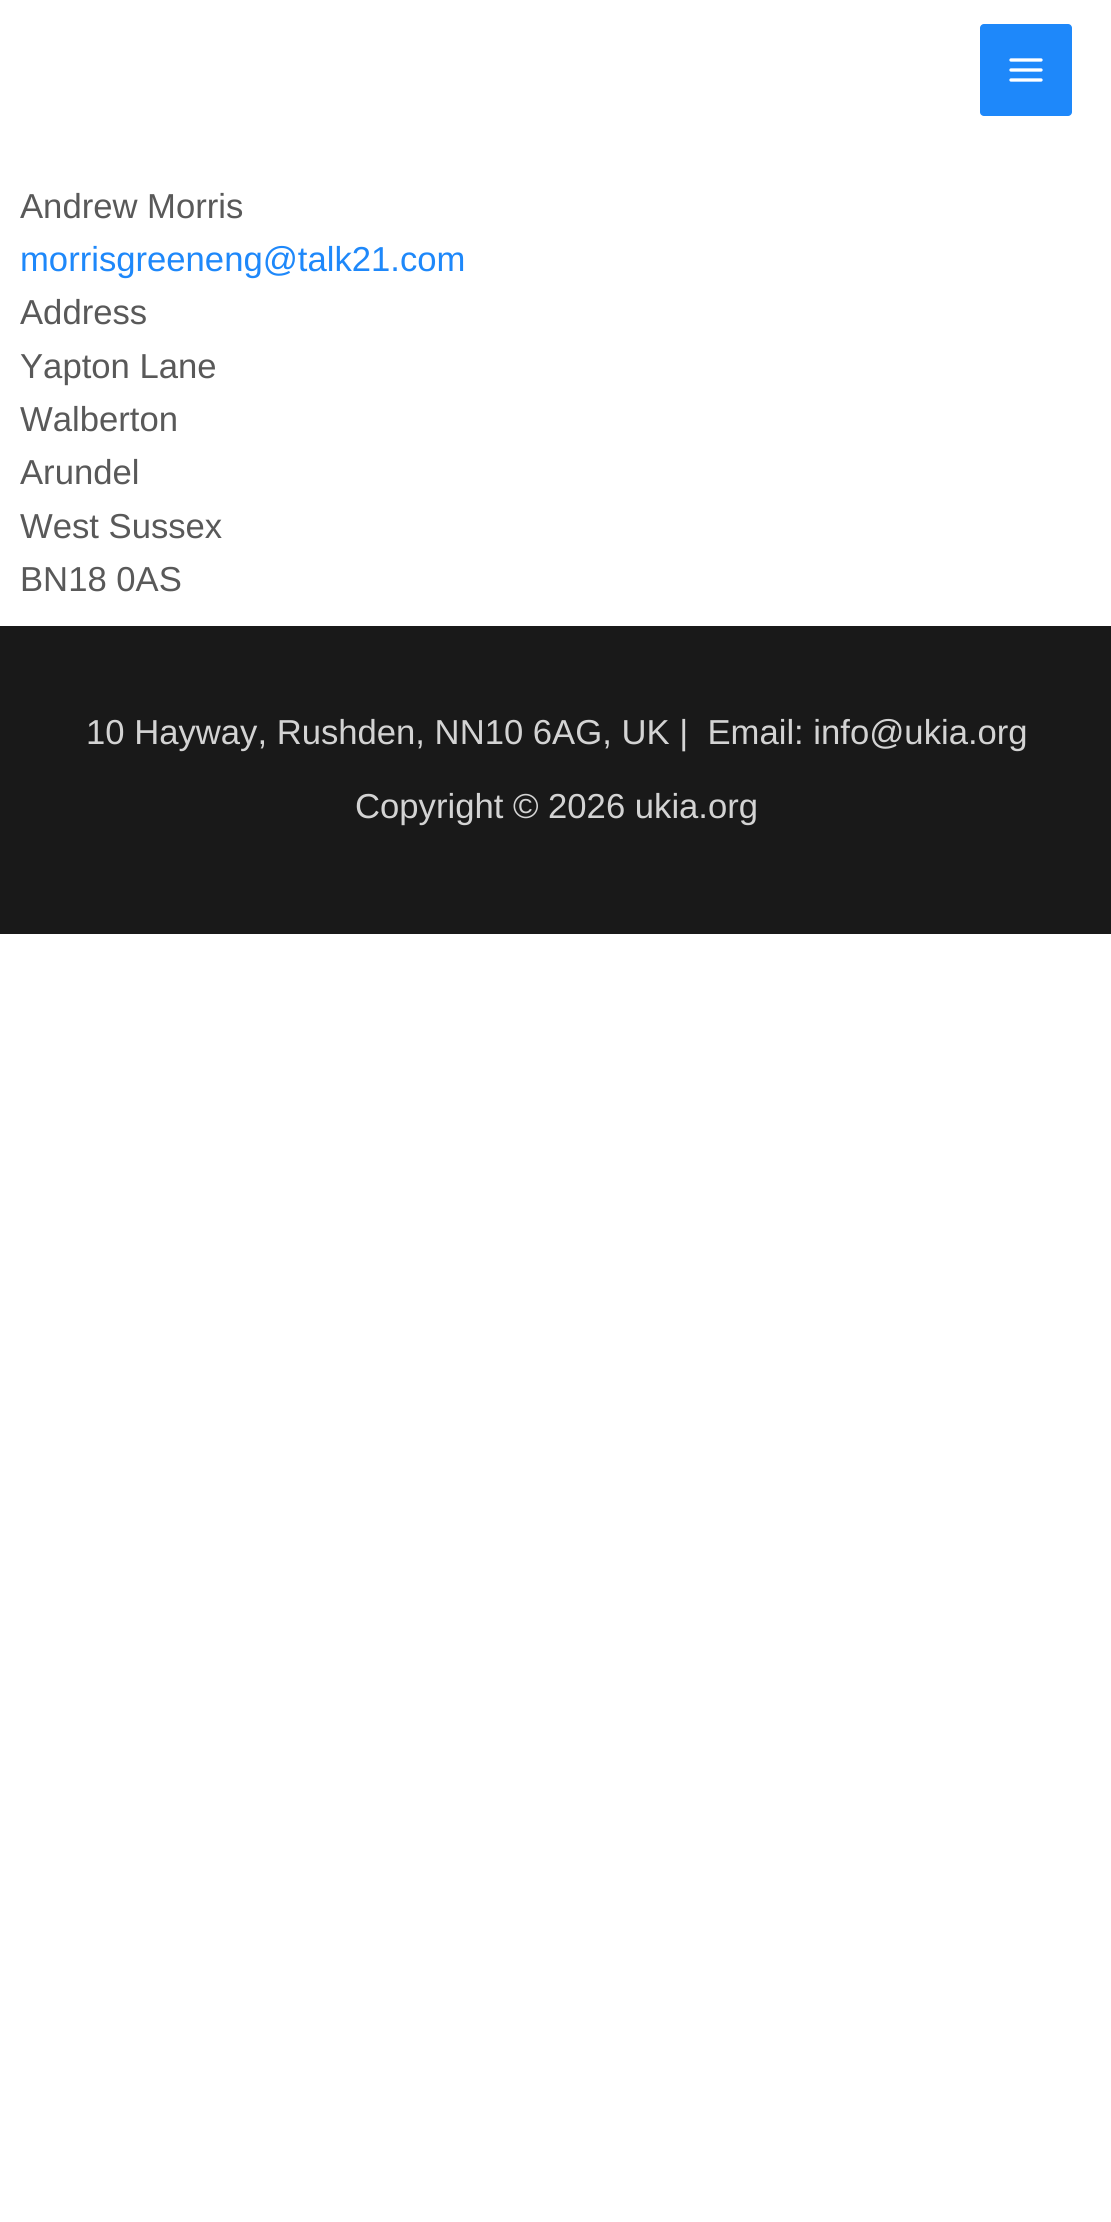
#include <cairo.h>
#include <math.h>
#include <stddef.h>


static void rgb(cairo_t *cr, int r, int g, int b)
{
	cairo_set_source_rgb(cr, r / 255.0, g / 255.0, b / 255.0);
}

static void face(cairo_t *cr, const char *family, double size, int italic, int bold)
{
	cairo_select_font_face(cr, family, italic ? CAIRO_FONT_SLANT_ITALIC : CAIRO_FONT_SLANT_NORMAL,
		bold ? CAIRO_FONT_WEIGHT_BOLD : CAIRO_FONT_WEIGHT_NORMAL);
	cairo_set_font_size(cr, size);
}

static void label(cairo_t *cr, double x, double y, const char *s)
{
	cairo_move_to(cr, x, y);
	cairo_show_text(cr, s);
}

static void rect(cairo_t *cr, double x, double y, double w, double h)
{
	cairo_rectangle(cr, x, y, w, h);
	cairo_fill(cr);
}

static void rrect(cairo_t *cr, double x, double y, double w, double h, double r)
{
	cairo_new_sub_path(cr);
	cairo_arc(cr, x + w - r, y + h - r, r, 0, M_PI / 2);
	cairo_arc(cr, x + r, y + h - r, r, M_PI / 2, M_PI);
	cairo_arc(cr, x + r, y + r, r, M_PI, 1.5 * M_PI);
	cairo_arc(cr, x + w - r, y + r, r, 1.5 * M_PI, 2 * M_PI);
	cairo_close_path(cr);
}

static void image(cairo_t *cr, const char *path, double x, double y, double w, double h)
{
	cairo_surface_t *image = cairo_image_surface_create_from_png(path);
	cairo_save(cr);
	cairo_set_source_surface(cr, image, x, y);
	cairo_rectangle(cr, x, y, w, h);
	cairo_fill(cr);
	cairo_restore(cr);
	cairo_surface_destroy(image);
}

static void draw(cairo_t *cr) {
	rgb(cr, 255, 255, 255);
	cairo_paint(cr);
	rgb(cr, 30, 136, 250);
	rrect(cr, 980, 24, 92, 92, 4);
	cairo_fill(cr);
	image(cr, "image0.png", 1009, 58, 34, 24);
	face(cr, "Liberation Sans", 34.65, 0, 0);
	rgb(cr, 89, 89, 89);
	label(cr, 20, 218, "Andrew Morris");
	rgb(cr, 30, 136, 250);
	label(cr, 20, 271, "morrisgreeneng@talk21.com");
	rgb(cr, 89, 89, 89);
	label(cr, 20, 324, "Address");
	label(cr, 20, 378, "Yapton Lane");
	label(cr, 20, 431, "Walberton");
	label(cr, 20, 484, "Arundel");
	label(cr, 20, 538, "West Sussex");
	label(cr, 20, 591, "BN18 0AS");
	rgb(cr, 25, 25, 25);
	rect(cr, 0, 626, 1111, 308);
	rgb(cr, 211, 211, 211);
	label(cr, 86, 744, "10 Hayway, Rushden, NN10 6AG, UK |  Email: info@ukia.org");
	label(cr, 355, 818, "Copyright © 2026 ukia.org");
}

int main(void) {
	cairo_surface_t *surface = cairo_image_surface_create(CAIRO_FORMAT_RGB24, 1111, 2222);
	cairo_t *cr = cairo_create(surface);
	cairo_font_options_t *options = cairo_font_options_create();
	cairo_font_options_set_hint_metrics(options, CAIRO_HINT_METRICS_OFF);
	cairo_font_options_set_hint_style(options, CAIRO_HINT_STYLE_NONE);
	cairo_set_font_options(cr, options);
	cairo_set_miter_limit(cr, 4);
	draw(cr);
	cairo_surface_write_to_png(surface, "render.png");
	cairo_font_options_destroy(options);
	cairo_destroy(cr);
	cairo_surface_destroy(surface);
	return 0;
}
